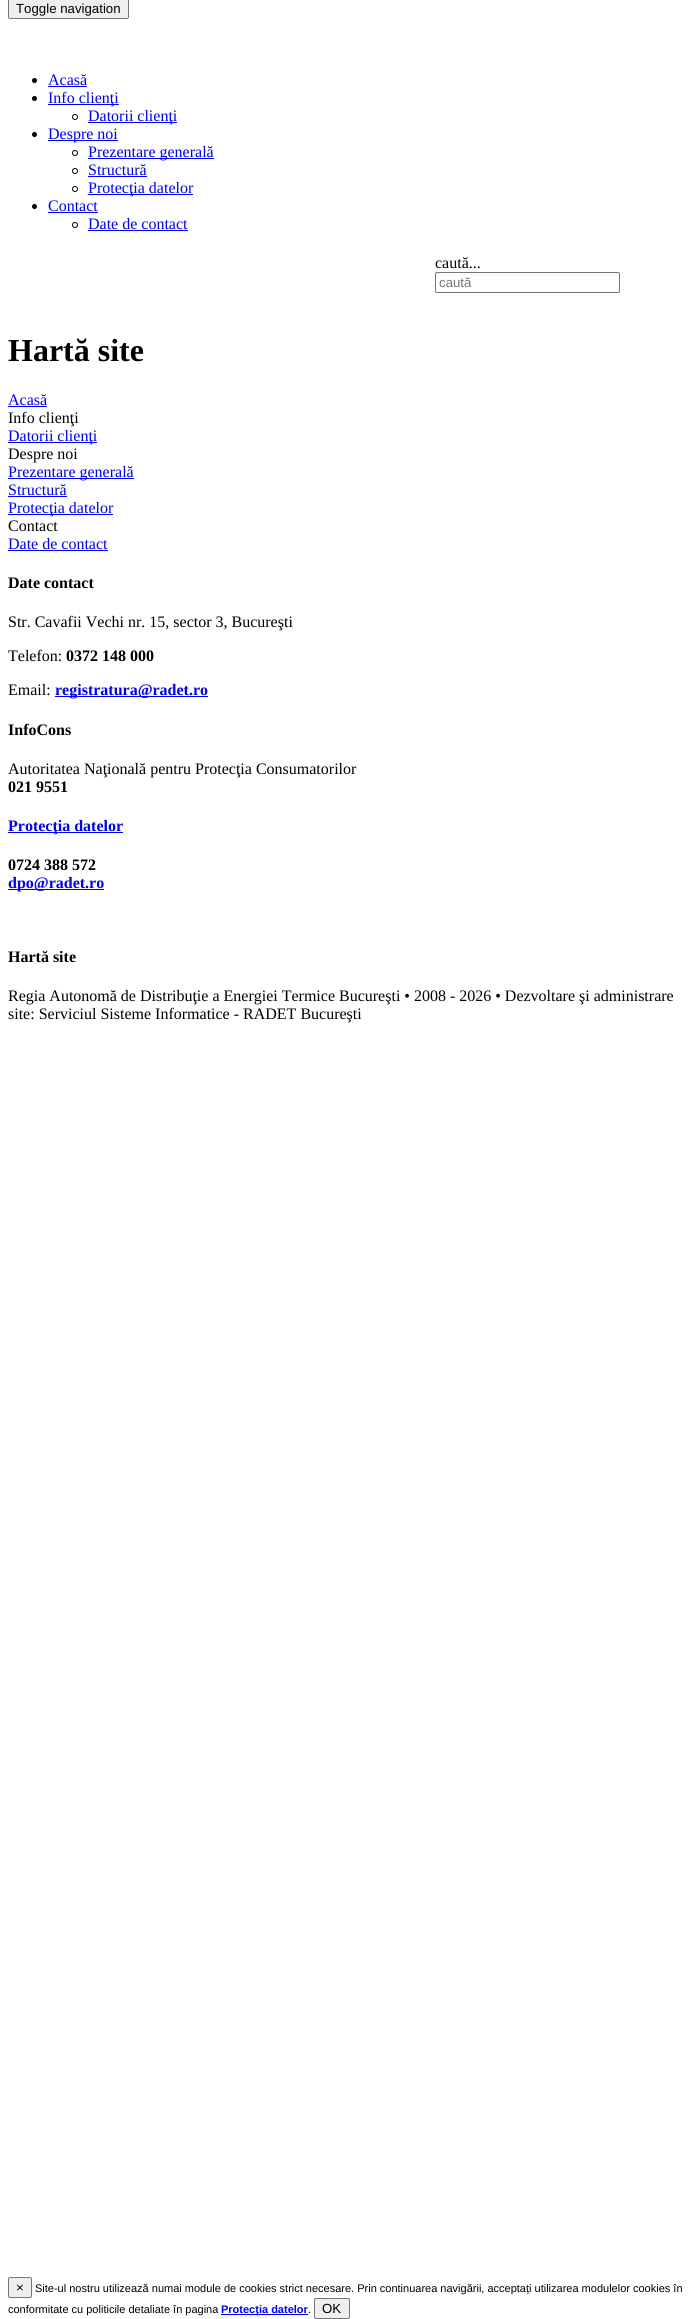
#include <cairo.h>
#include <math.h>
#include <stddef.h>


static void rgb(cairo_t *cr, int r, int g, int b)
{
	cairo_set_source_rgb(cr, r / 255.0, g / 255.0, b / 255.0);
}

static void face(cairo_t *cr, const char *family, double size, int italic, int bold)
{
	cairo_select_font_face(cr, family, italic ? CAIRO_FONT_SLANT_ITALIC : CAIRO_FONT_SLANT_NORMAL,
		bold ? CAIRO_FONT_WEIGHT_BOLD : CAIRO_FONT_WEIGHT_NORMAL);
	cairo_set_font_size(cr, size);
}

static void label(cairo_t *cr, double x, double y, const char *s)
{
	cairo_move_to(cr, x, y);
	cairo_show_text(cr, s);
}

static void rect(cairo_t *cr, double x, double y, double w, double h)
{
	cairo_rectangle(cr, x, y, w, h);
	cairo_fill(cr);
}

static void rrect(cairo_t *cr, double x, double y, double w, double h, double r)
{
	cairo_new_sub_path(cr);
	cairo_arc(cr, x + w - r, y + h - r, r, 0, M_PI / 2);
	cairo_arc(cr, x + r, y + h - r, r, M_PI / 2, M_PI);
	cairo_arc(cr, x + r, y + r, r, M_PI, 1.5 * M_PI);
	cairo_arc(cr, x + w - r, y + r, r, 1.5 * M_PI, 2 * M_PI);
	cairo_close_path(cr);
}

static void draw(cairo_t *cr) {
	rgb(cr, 255, 255, 255);
	cairo_paint(cr);
	rgb(cr, 239, 239, 239);
	rrect(cr, 8.5, -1.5, 120, 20, 1.5);
	cairo_fill_preserve(cr);
	rgb(cr, 118, 118, 118);
	cairo_set_line_width(cr, 1);
	cairo_stroke(cr);
	face(cr, "Liberation Sans", 13.25, 0, 0);
	rgb(cr, 0, 0, 0);
	label(cr, 16, 13, "Toggle navigation");
	cairo_new_path(cr);
	cairo_arc(cr, 34.5, 80.5, 2.5, 0, 2 * M_PI);
	cairo_fill(cr);
	face(cr, "Liberation Serif", 16, 0, 0);
	rgb(cr, 0, 0, 238);
	label(cr, 48, 85, "Acasă");
	rect(cr, 48, 86, 39, 1);
	rgb(cr, 0, 0, 0);
	cairo_new_path(cr);
	cairo_arc(cr, 34.5, 98.5, 2.5, 0, 2 * M_PI);
	cairo_fill(cr);
	rgb(cr, 0, 0, 238);
	rect(cr, 48, 104, 71, 1);
	label(cr, 48, 103, "Info clienţi");
	cairo_new_path(cr);
	cairo_arc(cr, 75, 117, 2.5, 0, 2 * M_PI);
	rgb(cr, 0, 0, 0);
	cairo_stroke(cr);
	rgb(cr, 0, 0, 238);
	rect(cr, 88, 122, 89, 1);
	label(cr, 88, 121, "Datorii clienţi");
	rgb(cr, 0, 0, 0);
	cairo_new_path(cr);
	cairo_arc(cr, 34.5, 134.5, 2.5, 0, 2 * M_PI);
	cairo_fill(cr);
	rgb(cr, 0, 0, 238);
	rect(cr, 48, 140, 70, 1);
	label(cr, 48, 139, "Despre noi");
	cairo_new_path(cr);
	cairo_arc(cr, 75, 153, 2.5, 0, 2 * M_PI);
	rgb(cr, 0, 0, 0);
	cairo_stroke(cr);
	rgb(cr, 0, 0, 238);
	rect(cr, 88, 158, 126, 1);
	label(cr, 88, 157, "Prezentare generală");
	cairo_new_path(cr);
	cairo_arc(cr, 75, 171, 2.5, 0, 2 * M_PI);
	rgb(cr, 0, 0, 0);
	cairo_stroke(cr);
	rgb(cr, 0, 0, 238);
	label(cr, 88, 175, "Structură");
	rect(cr, 88, 176, 59, 1);
	cairo_new_path(cr);
	cairo_arc(cr, 75, 189, 2.5, 0, 2 * M_PI);
	rgb(cr, 0, 0, 0);
	cairo_stroke(cr);
	rgb(cr, 0, 0, 238);
	rect(cr, 88, 194, 105, 1);
	label(cr, 88, 193, "Protecţia datelor");
	rgb(cr, 0, 0, 0);
	cairo_new_path(cr);
	cairo_arc(cr, 34.5, 206.5, 2.5, 0, 2 * M_PI);
	cairo_fill(cr);
	rgb(cr, 0, 0, 238);
	label(cr, 48, 211, "Contact");
	rect(cr, 48, 212, 50, 1);
	cairo_new_path(cr);
	cairo_arc(cr, 75, 225, 2.5, 0, 2 * M_PI);
	rgb(cr, 0, 0, 0);
	cairo_stroke(cr);
	rgb(cr, 0, 0, 238);
	label(cr, 88, 229, "Date de contact");
	rect(cr, 88, 230, 100, 1);
	rgb(cr, 0, 0, 0);
	label(cr, 435, 268, "caută...");
	rrect(cr, 435.5, 272.5, 184, 20, 1.5);
	rgb(cr, 118, 118, 118);
	cairo_stroke(cr);
	face(cr, "Liberation Sans", 13.25, 0, 0);
	rgb(cr, 117, 117, 117);
	label(cr, 439, 287, "caută");
	face(cr, "Liberation Serif", 32, 0, 1);
	rgb(cr, 0, 0, 0);
	label(cr, 8, 361, "Hartă site");
	face(cr, "Liberation Serif", 16, 0, 0);
	rgb(cr, 0, 0, 238);
	label(cr, 8, 405, "Acasă");
	rect(cr, 8, 406, 39, 1);
	rgb(cr, 0, 0, 0);
	label(cr, 8, 423, "Info clienţi");
	rgb(cr, 0, 0, 238);
	rect(cr, 8, 442, 89, 1);
	label(cr, 8, 441, "Datorii clienţi");
	rgb(cr, 0, 0, 0);
	label(cr, 8, 459, "Despre noi");
	rgb(cr, 0, 0, 238);
	rect(cr, 8, 478, 126, 1);
	label(cr, 8, 477, "Prezentare generală");
	label(cr, 8, 495, "Structură");
	rect(cr, 8, 496, 59, 1);
	rect(cr, 8, 514, 105, 1);
	label(cr, 8, 513, "Protecţia datelor");
	rgb(cr, 0, 0, 0);
	label(cr, 8, 531, "Contact");
	rgb(cr, 0, 0, 238);
	label(cr, 8, 549, "Date de contact");
	rect(cr, 8, 550, 100, 1);
	face(cr, "Liberation Serif", 16, 0, 1);
	rgb(cr, 0, 0, 0);
	label(cr, 8, 588, "Date contact");
	face(cr, "Liberation Serif", 16, 0, 0);
	label(cr, 8, 627, "Str. Cavafii Vechi nr. 15, sector 3, Bucureşti");
	label(cr, 8, 661, "Telefon:");
	face(cr, "Liberation Serif", 16, 0, 1);
	label(cr, 66, 661, "0372 148 000");
	face(cr, "Liberation Serif", 16, 0, 0);
	label(cr, 8, 695, "Email:");
	rgb(cr, 0, 0, 238);
	rect(cr, 55, 696, 153, 1);
	face(cr, "Liberation Serif", 16, 0, 1);
	label(cr, 55, 695, "registratura@radet.ro");
	rgb(cr, 0, 0, 0);
	label(cr, 8, 735, "InfoCons");
	face(cr, "Liberation Serif", 16, 0, 0);
	label(cr, 8, 774, "Autoritatea Naţională pentru Protecţia Consumatorilor");
	face(cr, "Liberation Serif", 16, 0, 1);
	label(cr, 8, 792, "021 9551");
	rgb(cr, 0, 0, 238);
	rect(cr, 8, 832, 115, 1);
	label(cr, 8, 831, "Protecţia datelor");
	rgb(cr, 0, 0, 0);
	label(cr, 8, 870, "0724 388 572");
	rgb(cr, 0, 0, 238);
	rect(cr, 8, 889, 96, 1);
	label(cr, 8, 888, "dpo@radet.ro");
	rgb(cr, 0, 0, 0);
	label(cr, 8, 962, "Hartă site");
	face(cr, "Liberation Serif", 16, 0, 0);
	label(cr, 8, 1001, "Regia Autonomă de Distribuţie a Energiei Termice Bucureşti • 2008 - 2026 • Dezvoltare şi administrare");
	label(cr, 8, 1019, "site: Serviciul Sisteme Informatice - RADET Bucureşti");
	rgb(cr, 239, 239, 239);
	rrect(cr, 8.5, 2277.5, 23, 20, 1.5);
	cairo_fill_preserve(cr);
	rgb(cr, 118, 118, 118);
	cairo_stroke(cr);
	face(cr, "Liberation Sans", 13.25, 0, 0);
	rgb(cr, 0, 0, 0);
	label(cr, 16, 2292, "×");
	face(cr, "Liberation Sans", 11, 0, 0);
	label(cr, 35, 2292, "Site-ul nostru utilizează numai module de cookies strict necesare. Prin continuarea navigării, acceptați utilizarea modulelor cookies în");
	label(cr, 8, 2313, "conformitate cu politicile detaliate în pagina");
	rgb(cr, 0, 0, 238);
	rect(cr, 221, 2314, 87, 1);
	face(cr, "Liberation Sans", 11, 0, 1);
	label(cr, 221, 2313, "Protecţia datelor");
	face(cr, "Liberation Sans", 11, 0, 0);
	rgb(cr, 0, 0, 0);
	label(cr, 308, 2313, ".");
	rgb(cr, 239, 239, 239);
	rrect(cr, 314.5, 2298.5, 35, 20, 1.5);
	cairo_fill_preserve(cr);
	rgb(cr, 118, 118, 118);
	cairo_stroke(cr);
	face(cr, "Liberation Sans", 13.25, 0, 0);
	rgb(cr, 0, 0, 0);
	label(cr, 322, 2313, "OK");
}

int main(void) {
	cairo_surface_t *surface = cairo_image_surface_create(CAIRO_FORMAT_RGB24, 688, 2319);
	cairo_t *cr = cairo_create(surface);
	cairo_font_options_t *options = cairo_font_options_create();
	cairo_font_options_set_hint_metrics(options, CAIRO_HINT_METRICS_OFF);
	cairo_font_options_set_hint_style(options, CAIRO_HINT_STYLE_NONE);
	cairo_set_font_options(cr, options);
	cairo_set_miter_limit(cr, 4);
	draw(cr);
	cairo_surface_write_to_png(surface, "render.png");
	cairo_font_options_destroy(options);
	cairo_destroy(cr);
	cairo_surface_destroy(surface);
	return 0;
}
